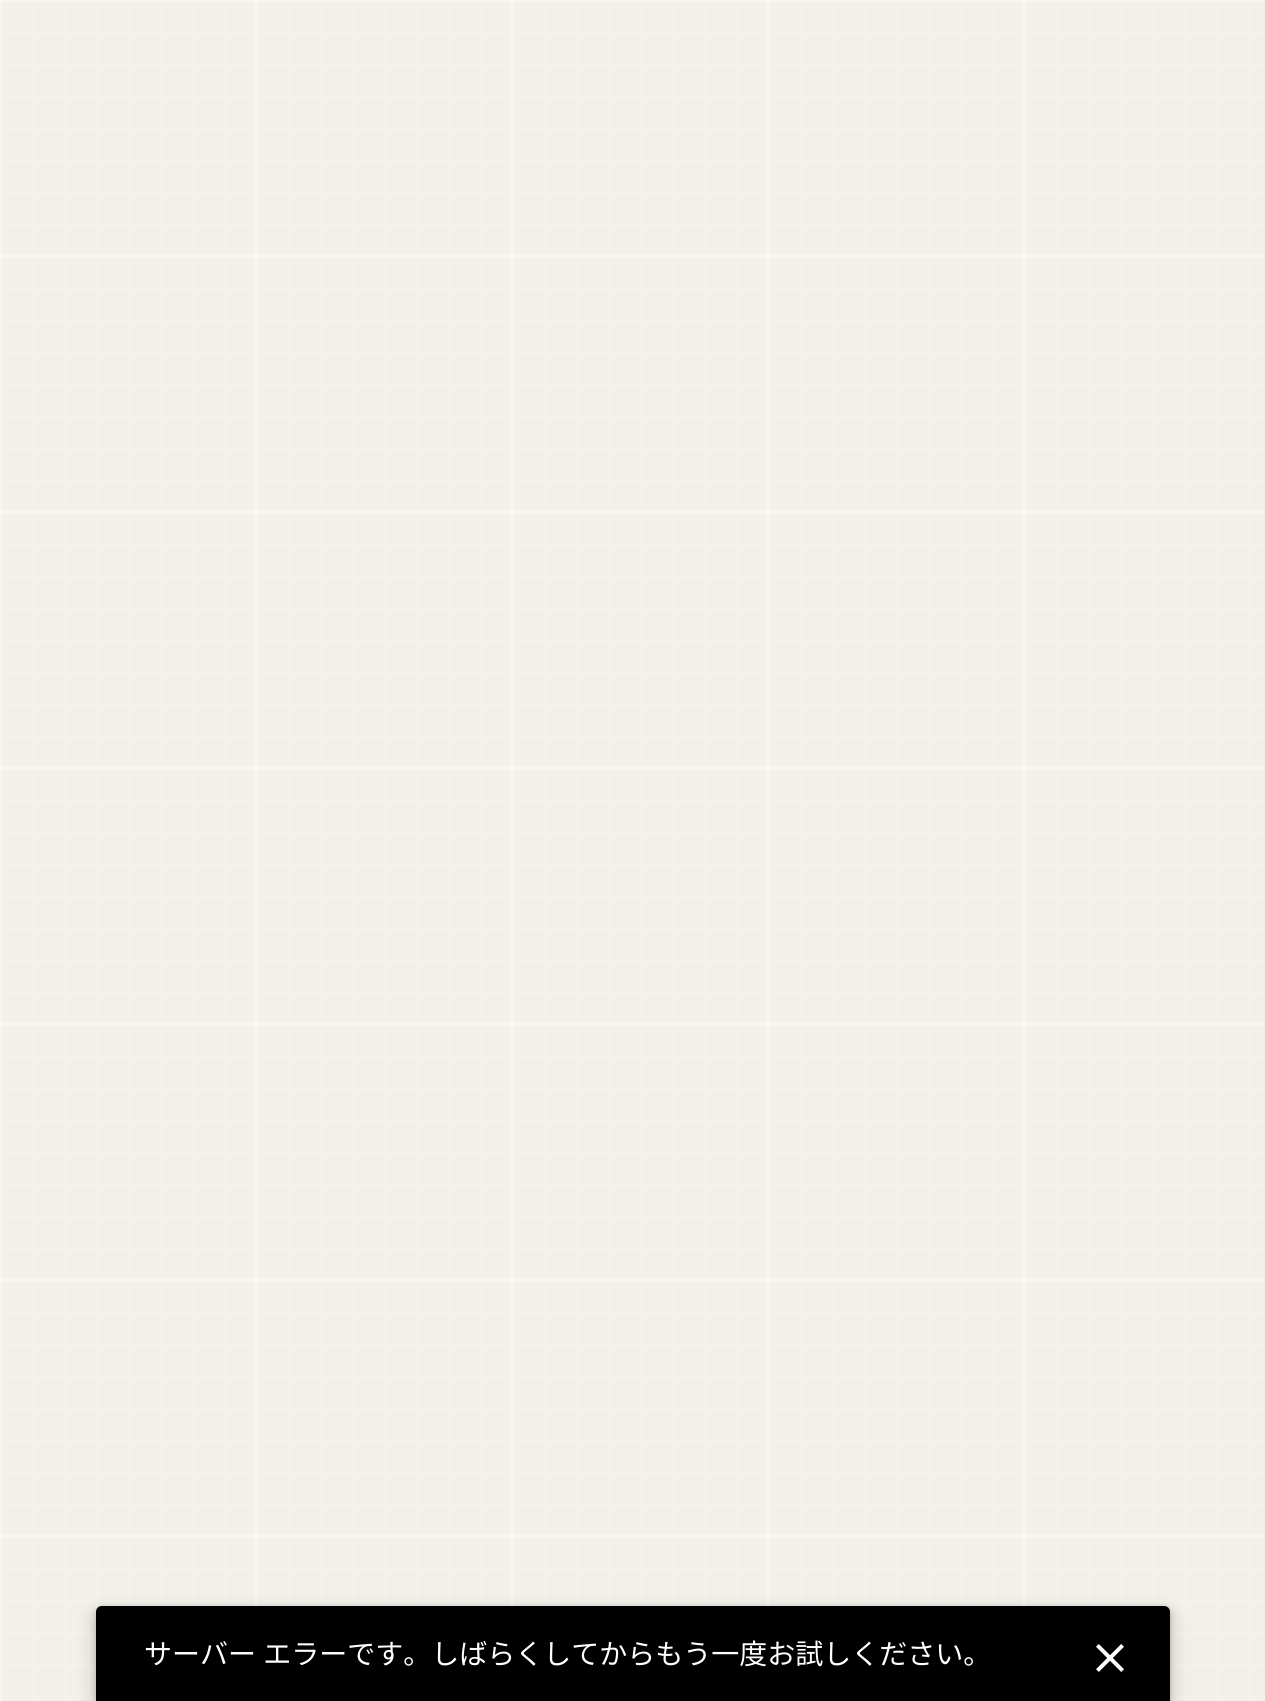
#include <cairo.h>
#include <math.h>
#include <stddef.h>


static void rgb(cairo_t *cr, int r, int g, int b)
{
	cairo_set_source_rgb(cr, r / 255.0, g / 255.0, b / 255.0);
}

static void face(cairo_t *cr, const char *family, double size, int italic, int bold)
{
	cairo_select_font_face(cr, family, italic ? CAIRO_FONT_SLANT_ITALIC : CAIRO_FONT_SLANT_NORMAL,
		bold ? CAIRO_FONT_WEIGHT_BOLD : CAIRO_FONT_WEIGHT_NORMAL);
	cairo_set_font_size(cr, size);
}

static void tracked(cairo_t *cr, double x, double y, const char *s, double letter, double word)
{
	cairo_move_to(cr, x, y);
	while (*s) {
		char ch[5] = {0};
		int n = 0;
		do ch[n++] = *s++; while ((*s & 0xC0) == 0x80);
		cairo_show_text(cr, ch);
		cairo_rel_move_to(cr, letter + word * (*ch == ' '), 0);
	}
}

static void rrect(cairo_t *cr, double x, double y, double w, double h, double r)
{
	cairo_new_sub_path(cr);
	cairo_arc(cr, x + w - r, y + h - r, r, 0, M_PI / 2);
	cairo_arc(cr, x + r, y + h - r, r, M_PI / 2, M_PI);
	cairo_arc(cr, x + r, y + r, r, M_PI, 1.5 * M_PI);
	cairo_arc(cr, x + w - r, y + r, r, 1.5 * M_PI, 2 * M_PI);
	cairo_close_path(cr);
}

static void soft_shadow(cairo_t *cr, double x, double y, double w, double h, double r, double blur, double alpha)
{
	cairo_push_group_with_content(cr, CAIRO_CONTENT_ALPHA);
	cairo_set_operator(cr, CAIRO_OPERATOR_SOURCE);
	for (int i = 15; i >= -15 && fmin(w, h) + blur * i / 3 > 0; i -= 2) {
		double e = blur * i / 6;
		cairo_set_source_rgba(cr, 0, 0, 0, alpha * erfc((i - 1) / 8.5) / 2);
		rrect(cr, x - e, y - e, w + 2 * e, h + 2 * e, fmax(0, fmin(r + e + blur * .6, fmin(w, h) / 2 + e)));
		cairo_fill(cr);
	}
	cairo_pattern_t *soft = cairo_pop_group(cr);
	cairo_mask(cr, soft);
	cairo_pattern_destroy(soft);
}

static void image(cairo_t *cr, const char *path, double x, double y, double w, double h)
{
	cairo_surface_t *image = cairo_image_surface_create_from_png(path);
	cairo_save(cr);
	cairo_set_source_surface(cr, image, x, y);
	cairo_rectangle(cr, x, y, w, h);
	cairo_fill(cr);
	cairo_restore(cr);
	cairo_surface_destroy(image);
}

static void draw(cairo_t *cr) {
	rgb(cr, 242, 240, 232);
	cairo_paint(cr);
	image(cr, "image0.png", 0, 0, 1265, 1701);
	rgb(cr, 60, 64, 67);
	soft_shadow(cr, 90, 1608, 1086, 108, 12, 8, 0.15);
	soft_shadow(cr, 96, 1608, 1074, 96, 6, 3, 0.3);
	rgb(cr, 0, 0, 0);
	cairo_new_path(cr);
	cairo_move_to(cr, 102, 1606);
	cairo_line_to(cr, 1164, 1606);
	cairo_curve_to(cr, 1167.5, 1606, 1170, 1608.5, 1170, 1612);
	cairo_line_to(cr, 1170, 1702);
	cairo_line_to(cr, 96, 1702);
	cairo_line_to(cr, 96, 1612);
	cairo_curve_to(cr, 96, 1608.5, 98.5, 1606, 102, 1606);
	cairo_close_path(cr);
	cairo_fill(cr);
	face(cr, "Noto Sans JP", 28, 0, 0);
	rgb(cr, 255, 255, 255);
	tracked(cr, 144, 1664, "サーバー エラーです。しばらくしてからもう一度お試しください。", 0, 1);
	image(cr, "image1.png", 1096, 1644, 28, 28);
}

int main(void) {
	cairo_surface_t *surface = cairo_image_surface_create(CAIRO_FORMAT_RGB24, 1265, 1701);
	cairo_t *cr = cairo_create(surface);
	cairo_font_options_t *options = cairo_font_options_create();
	cairo_font_options_set_hint_metrics(options, CAIRO_HINT_METRICS_OFF);
	cairo_font_options_set_hint_style(options, CAIRO_HINT_STYLE_NONE);
	cairo_set_font_options(cr, options);
	cairo_set_miter_limit(cr, 4);
	draw(cr);
	cairo_surface_write_to_png(surface, "render.png");
	cairo_font_options_destroy(options);
	cairo_destroy(cr);
	cairo_surface_destroy(surface);
	return 0;
}
